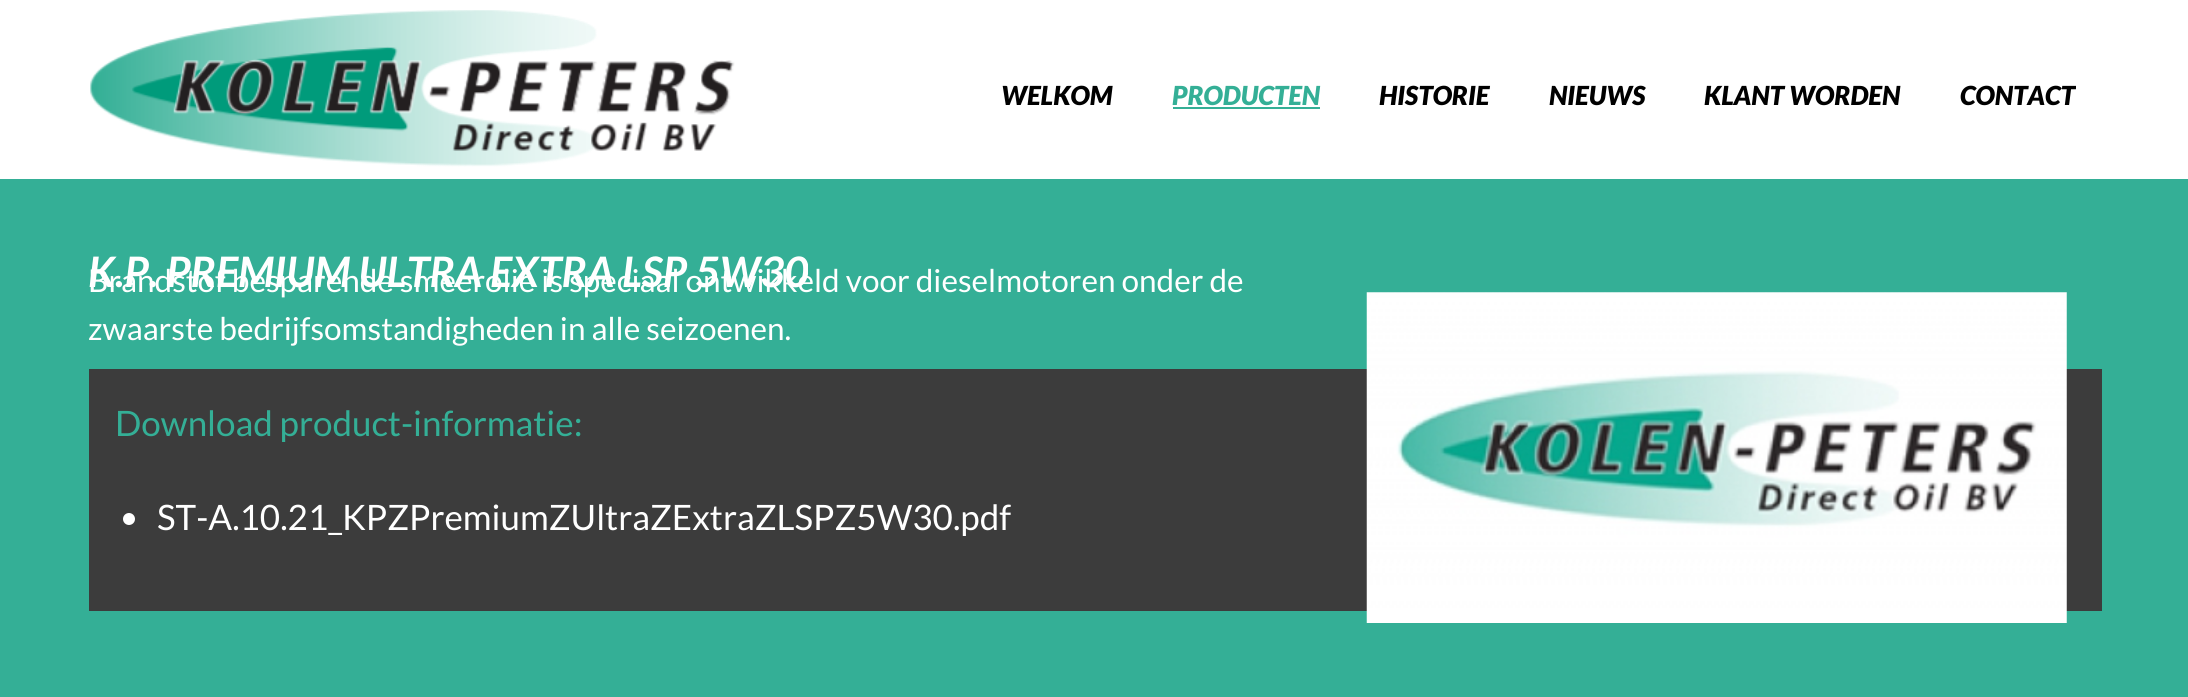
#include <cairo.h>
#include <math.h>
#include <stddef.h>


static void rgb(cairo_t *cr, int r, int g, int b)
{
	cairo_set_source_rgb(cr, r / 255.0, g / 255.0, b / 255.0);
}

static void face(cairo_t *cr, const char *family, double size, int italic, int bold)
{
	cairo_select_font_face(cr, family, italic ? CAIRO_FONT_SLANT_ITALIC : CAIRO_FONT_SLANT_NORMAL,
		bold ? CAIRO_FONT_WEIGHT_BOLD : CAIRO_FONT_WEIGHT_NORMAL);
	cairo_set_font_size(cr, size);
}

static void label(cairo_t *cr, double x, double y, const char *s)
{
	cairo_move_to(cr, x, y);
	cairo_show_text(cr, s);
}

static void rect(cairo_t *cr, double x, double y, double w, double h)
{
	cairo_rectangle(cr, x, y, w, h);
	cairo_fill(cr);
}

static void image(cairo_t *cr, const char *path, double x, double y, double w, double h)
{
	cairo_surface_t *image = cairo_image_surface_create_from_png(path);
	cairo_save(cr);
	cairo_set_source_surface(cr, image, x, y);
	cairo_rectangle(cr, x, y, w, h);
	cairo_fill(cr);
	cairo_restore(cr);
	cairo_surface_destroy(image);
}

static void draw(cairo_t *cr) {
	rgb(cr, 52, 175, 150);
	cairo_paint(cr);
	rgb(cr, 255, 255, 255);
	rect(cr, 0, 0, 2188, 179);
	image(cr, "image0.png", 90, 10, 645, 157);
	face(cr, "Lato Black", 26.25, 1, 0);
	rgb(cr, 0, 0, 0);
	label(cr, 1001, 105, "WELKOM");
	rgb(cr, 52, 175, 150);
	label(cr, 1172, 105, "PRODUCTEN");
	rect(cr, 1173, 107, 147, 2);
	rgb(cr, 0, 0, 0);
	label(cr, 1379, 105, "HISTORIE");
	label(cr, 1549, 105, "NIEUWS");
	label(cr, 1704, 105, "KLANT WORDEN");
	label(cr, 1960, 105, "CONTACT");
	face(cr, "Lato", 42, 1, 1);
	rgb(cr, 255, 255, 255);
	label(cr, 88, 287, "K.P. PREMIUM ULTRA EXTRA LSP 5W30");
	face(cr, "Lato", 31.5, 0, 0);
	label(cr, 88, 292, "Brandstof besparende smeerolie is speciaal ontwikkeld voor dieselmotoren onder de");
	label(cr, 88, 340, "zwaarste bedrijfsomstandigheden in alle seizoenen.");
	rgb(cr, 60, 60, 60);
	rect(cr, 89, 369, 2013, 242);
	image(cr, "image1.png", 1366, 292, 701, 331);
	face(cr, "Lato", 35, 0, 0);
	rgb(cr, 52, 175, 150);
	label(cr, 115, 436, "Download product-informatie:");
	rgb(cr, 255, 255, 255);
	cairo_new_path(cr);
	cairo_arc(cr, 129, 519, 6, 0, 2 * M_PI);
	cairo_fill(cr);
	label(cr, 157, 530, "ST-A.10.21_KPZPremiumZUltraZExtraZLSPZ5W30.pdf");
}

int main(void) {
	cairo_surface_t *surface = cairo_image_surface_create(CAIRO_FORMAT_RGB24, 2188, 697);
	cairo_t *cr = cairo_create(surface);
	cairo_font_options_t *options = cairo_font_options_create();
	cairo_font_options_set_hint_metrics(options, CAIRO_HINT_METRICS_OFF);
	cairo_font_options_set_hint_style(options, CAIRO_HINT_STYLE_NONE);
	cairo_set_font_options(cr, options);
	cairo_set_miter_limit(cr, 4);
	draw(cr);
	cairo_surface_write_to_png(surface, "render.png");
	cairo_font_options_destroy(options);
	cairo_destroy(cr);
	cairo_surface_destroy(surface);
	return 0;
}
